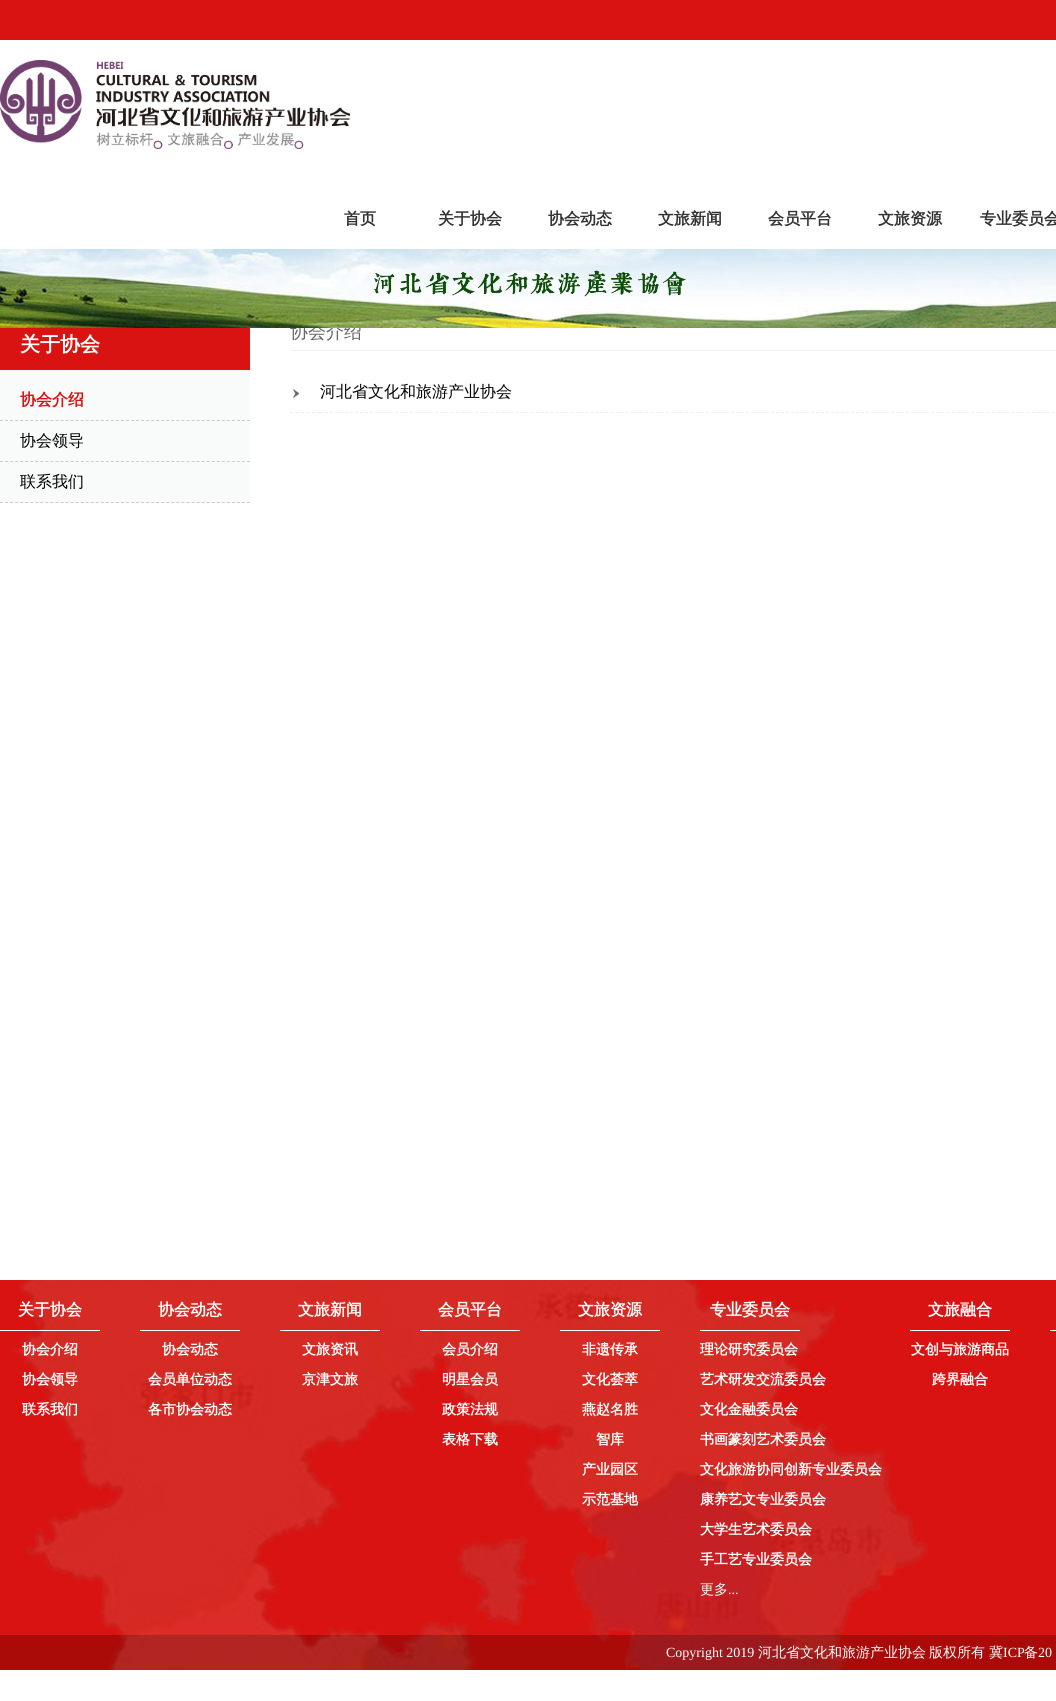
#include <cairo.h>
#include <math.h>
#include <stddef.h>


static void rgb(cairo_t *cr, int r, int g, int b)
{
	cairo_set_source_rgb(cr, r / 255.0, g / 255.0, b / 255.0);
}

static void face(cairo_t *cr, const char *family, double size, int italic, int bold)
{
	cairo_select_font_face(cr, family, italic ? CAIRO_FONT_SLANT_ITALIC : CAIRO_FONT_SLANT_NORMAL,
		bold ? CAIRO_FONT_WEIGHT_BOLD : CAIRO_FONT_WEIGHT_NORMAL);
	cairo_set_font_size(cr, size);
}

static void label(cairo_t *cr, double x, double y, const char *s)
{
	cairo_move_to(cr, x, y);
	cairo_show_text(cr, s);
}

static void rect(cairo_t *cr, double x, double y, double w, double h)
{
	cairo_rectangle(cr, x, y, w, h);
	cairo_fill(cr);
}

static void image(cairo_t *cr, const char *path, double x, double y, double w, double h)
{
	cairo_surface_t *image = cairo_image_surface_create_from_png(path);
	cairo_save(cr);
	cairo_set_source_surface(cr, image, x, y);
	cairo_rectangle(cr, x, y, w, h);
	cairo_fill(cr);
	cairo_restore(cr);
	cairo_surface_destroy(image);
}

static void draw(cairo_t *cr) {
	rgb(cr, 255, 255, 255);
	cairo_paint(cr);
	rgb(cr, 217, 19, 18);
	rect(cr, 0, 0, 1056, 40);
	image(cr, "image0.png", 0, 60, 350, 89);
	face(cr, "WenQuanYi Zen Hei", 16, 0, 1);
	rgb(cr, 51, 51, 51);
	label(cr, 344, 224, "首页");
	label(cr, 438, 224, "关于协会");
	label(cr, 548, 224, "协会动态");
	label(cr, 658, 224, "文旅新闻");
	label(cr, 768, 224, "会员平台");
	label(cr, 878, 224, "文旅资源");
	label(cr, 980, 224, "专业委员会");
	face(cr, "WenQuanYi Zen Hei Medium", 18, 0, 0);
	rgb(cr, 102, 102, 102);
	label(cr, 290, 338, "协会介绍");
	image(cr, "image1.png", 0, 249, 1056, 79);
	rgb(cr, 249, 250, 250);
	rect(cr, 0, 370, 250, 133);
	rgb(cr, 217, 19, 18);
	rect(cr, 0, 328, 250, 42);
	face(cr, "WenQuanYi Zen Hei", 20, 0, 1);
	rgb(cr, 255, 255, 255);
	label(cr, 20, 351, "关于协会");
	cairo_new_path(cr);
	cairo_move_to(cr, 0, 420.5);
	cairo_line_to(cr, 250, 420.5);
	rgb(cr, 204, 204, 204);
	cairo_set_line_width(cr, 1);
	cairo_set_dash(cr, (double[]){3, 2.04}, 2, 0);
	cairo_stroke(cr);
	face(cr, "WenQuanYi Zen Hei", 16, 0, 1);
	rgb(cr, 217, 19, 18);
	label(cr, 20, 405, "协会介绍");
	cairo_new_path(cr);
	cairo_move_to(cr, 0, 461.5);
	cairo_line_to(cr, 250, 461.5);
	rgb(cr, 204, 204, 204);
	cairo_stroke(cr);
	face(cr, "WenQuanYi Zen Hei Medium", 16, 0, 0);
	rgb(cr, 0, 0, 0);
	label(cr, 20, 446, "协会领导");
	cairo_new_path(cr);
	cairo_move_to(cr, 0, 502.5);
	cairo_line_to(cr, 250, 502.5);
	rgb(cr, 204, 204, 204);
	cairo_stroke(cr);
	rgb(cr, 0, 0, 0);
	label(cr, 20, 487, "联系我们");
	rgb(cr, 238, 238, 238);
	rect(cr, 290, 350, 766, 1);
	cairo_new_path(cr);
	cairo_move_to(cr, 290, 412.5);
	cairo_line_to(cr, 320, 412.5);
	cairo_set_dash(cr, (double[]){3, 2.4}, 2, 0);
	cairo_stroke(cr);
	image(cr, "image2.png", 291, 386, 8, 14);
	cairo_new_path(cr);
	cairo_move_to(cr, 320, 412.5);
	cairo_line_to(cr, 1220, 412.5);
	cairo_set_dash(cr, (double[]){3, 2.01}, 2, 0);
	cairo_stroke(cr);
	rgb(cr, 0, 0, 0);
	label(cr, 320, 397, "河北省文化和旅游产业协会");
	image(cr, "image3.png", 0, 1280, 1056, 390);
	rgb(cr, 255, 255, 255);
	rect(cr, 0, 1330, 100, 1);
	face(cr, "WenQuanYi Zen Hei", 16, 0, 1);
	label(cr, 18, 1315, "关于协会");
	face(cr, "WenQuanYi Zen Hei", 14, 0, 1);
	label(cr, 22, 1354, "协会介绍");
	label(cr, 22, 1384, "协会领导");
	label(cr, 22, 1414, "联系我们");
	rect(cr, 140, 1330, 100, 1);
	face(cr, "WenQuanYi Zen Hei", 16, 0, 1);
	label(cr, 158, 1315, "协会动态");
	face(cr, "WenQuanYi Zen Hei", 14, 0, 1);
	label(cr, 162, 1354, "协会动态");
	label(cr, 148, 1384, "会员单位动态");
	label(cr, 148, 1414, "各市协会动态");
	rect(cr, 280, 1330, 100, 1);
	face(cr, "WenQuanYi Zen Hei", 16, 0, 1);
	label(cr, 298, 1315, "文旅新闻");
	face(cr, "WenQuanYi Zen Hei", 14, 0, 1);
	label(cr, 302, 1354, "文旅资讯");
	label(cr, 302, 1384, "京津文旅");
	rect(cr, 420, 1330, 100, 1);
	face(cr, "WenQuanYi Zen Hei", 16, 0, 1);
	label(cr, 438, 1315, "会员平台");
	face(cr, "WenQuanYi Zen Hei", 14, 0, 1);
	label(cr, 442, 1354, "会员介绍");
	label(cr, 442, 1384, "明星会员");
	label(cr, 442, 1414, "政策法规");
	label(cr, 442, 1444, "表格下载");
	rect(cr, 560, 1330, 100, 1);
	face(cr, "WenQuanYi Zen Hei", 16, 0, 1);
	label(cr, 578, 1315, "文旅资源");
	face(cr, "WenQuanYi Zen Hei", 14, 0, 1);
	label(cr, 582, 1354, "非遗传承");
	label(cr, 582, 1384, "文化荟萃");
	label(cr, 582, 1414, "燕赵名胜");
	label(cr, 596, 1444, "智库");
	label(cr, 582, 1474, "产业园区");
	label(cr, 582, 1504, "示范基地");
	rect(cr, 700, 1330, 100, 1);
	face(cr, "WenQuanYi Zen Hei", 16, 0, 1);
	label(cr, 710, 1315, "专业委员会");
	face(cr, "WenQuanYi Zen Hei", 14, 0, 1);
	label(cr, 700, 1354, "理论研究委员会");
	label(cr, 700, 1384, "艺术研发交流委员会");
	label(cr, 700, 1414, "文化金融委员会");
	label(cr, 700, 1444, "书画篆刻艺术委员会");
	label(cr, 700, 1474, "文化旅游协同创新专业委员会");
	label(cr, 700, 1504, "康养艺文专业委员会");
	label(cr, 700, 1534, "大学生艺术委员会");
	label(cr, 700, 1564, "手工艺专业委员会");
	face(cr, "WenQuanYi Zen Hei Medium", 14, 0, 0);
	label(cr, 700, 1594, "更多");
	face(cr, "Liberation Serif", 14, 0, 0);
	label(cr, 728, 1594, "...");
	rect(cr, 910, 1330, 100, 1);
	face(cr, "WenQuanYi Zen Hei", 16, 0, 1);
	label(cr, 928, 1315, "文旅融合");
	face(cr, "WenQuanYi Zen Hei", 14, 0, 1);
	label(cr, 911, 1354, "文创与旅游商品");
	label(cr, 932, 1384, "跨界融合");
	rect(cr, 1050, 1330, 6, 1);
	face(cr, "Liberation Serif", 14, 0, 0);
	label(cr, 666, 1657, "Copyright 2019");
	face(cr, "WenQuanYi Zen Hei Medium", 14, 0, 0);
	label(cr, 758, 1657, "河北省文化和旅游产业协会");
	label(cr, 929, 1657, "版权所有");
	label(cr, 989, 1657, "冀");
	face(cr, "Liberation Serif", 14, 0, 0);
	label(cr, 1003, 1657, "ICP");
	face(cr, "WenQuanYi Zen Hei Medium", 14, 0, 0);
	label(cr, 1024, 1657, "备");
	face(cr, "Liberation Serif", 14, 0, 0);
	label(cr, 1038, 1657, "20");
}

int main(void) {
	cairo_surface_t *surface = cairo_image_surface_create(CAIRO_FORMAT_RGB24, 1056, 1701);
	cairo_t *cr = cairo_create(surface);
	cairo_font_options_t *options = cairo_font_options_create();
	cairo_font_options_set_hint_metrics(options, CAIRO_HINT_METRICS_OFF);
	cairo_font_options_set_hint_style(options, CAIRO_HINT_STYLE_NONE);
	cairo_set_font_options(cr, options);
	cairo_set_miter_limit(cr, 4);
	draw(cr);
	cairo_surface_write_to_png(surface, "render.png");
	cairo_font_options_destroy(options);
	cairo_destroy(cr);
	cairo_surface_destroy(surface);
	return 0;
}
